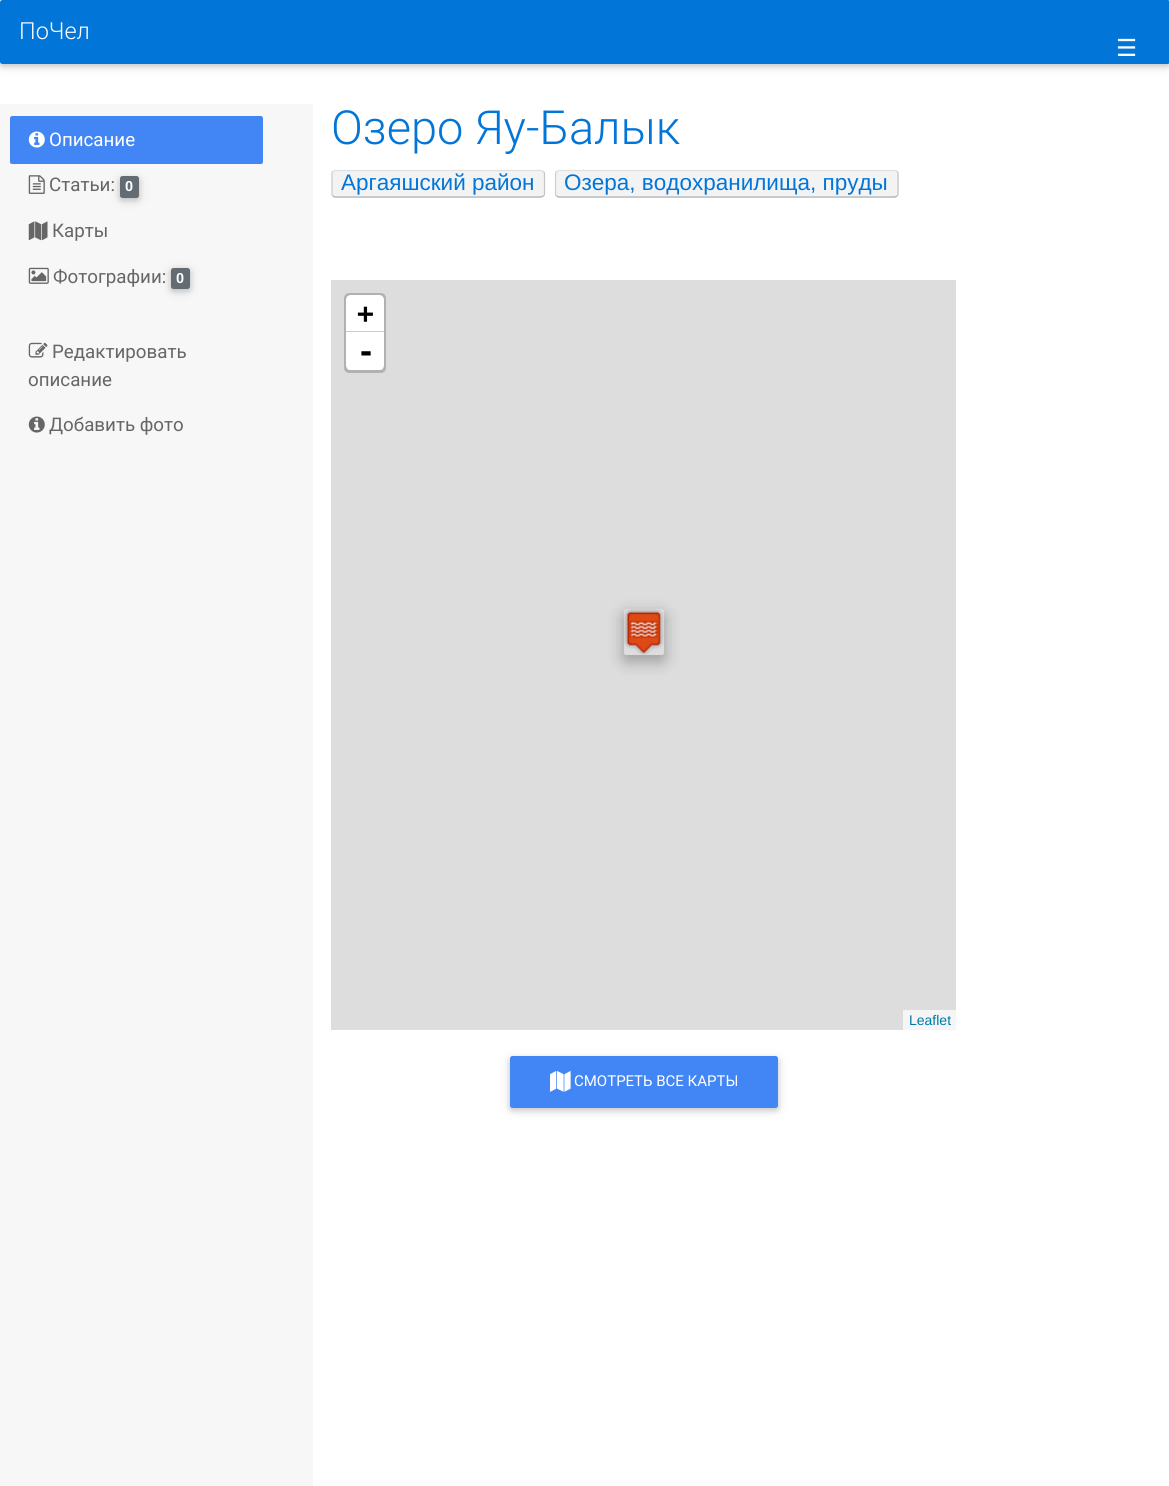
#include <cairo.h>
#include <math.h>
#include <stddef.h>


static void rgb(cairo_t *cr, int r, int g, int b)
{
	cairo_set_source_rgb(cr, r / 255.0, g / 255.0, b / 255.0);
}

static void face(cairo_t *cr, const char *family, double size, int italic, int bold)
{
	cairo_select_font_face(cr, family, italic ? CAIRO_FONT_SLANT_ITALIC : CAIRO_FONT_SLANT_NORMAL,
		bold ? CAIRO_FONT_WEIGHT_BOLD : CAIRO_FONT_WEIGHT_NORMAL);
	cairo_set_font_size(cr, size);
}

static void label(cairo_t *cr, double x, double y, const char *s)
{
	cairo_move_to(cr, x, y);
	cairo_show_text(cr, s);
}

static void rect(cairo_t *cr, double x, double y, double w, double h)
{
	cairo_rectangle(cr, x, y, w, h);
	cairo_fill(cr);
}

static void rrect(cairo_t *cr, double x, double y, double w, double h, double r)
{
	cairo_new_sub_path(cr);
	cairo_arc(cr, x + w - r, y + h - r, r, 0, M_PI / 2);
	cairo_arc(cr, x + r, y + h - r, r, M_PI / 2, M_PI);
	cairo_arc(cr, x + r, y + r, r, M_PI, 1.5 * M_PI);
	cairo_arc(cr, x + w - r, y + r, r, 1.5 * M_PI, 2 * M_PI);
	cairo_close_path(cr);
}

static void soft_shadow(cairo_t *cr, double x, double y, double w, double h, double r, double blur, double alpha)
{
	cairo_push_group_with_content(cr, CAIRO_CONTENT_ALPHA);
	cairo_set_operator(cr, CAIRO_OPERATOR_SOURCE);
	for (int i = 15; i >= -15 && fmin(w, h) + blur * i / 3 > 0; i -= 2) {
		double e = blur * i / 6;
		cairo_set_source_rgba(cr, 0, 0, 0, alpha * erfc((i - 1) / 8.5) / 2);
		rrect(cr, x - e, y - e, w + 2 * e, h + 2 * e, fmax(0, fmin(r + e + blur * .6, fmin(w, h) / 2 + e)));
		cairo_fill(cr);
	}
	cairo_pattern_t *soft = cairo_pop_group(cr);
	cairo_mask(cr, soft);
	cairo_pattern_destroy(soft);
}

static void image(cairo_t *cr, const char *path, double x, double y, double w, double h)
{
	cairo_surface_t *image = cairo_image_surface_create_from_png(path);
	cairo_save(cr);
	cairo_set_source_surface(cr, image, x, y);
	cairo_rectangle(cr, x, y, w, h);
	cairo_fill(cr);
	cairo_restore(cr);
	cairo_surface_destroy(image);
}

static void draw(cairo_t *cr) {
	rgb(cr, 255, 255, 255);
	cairo_paint(cr);
	rgb(cr, 0, 0, 0);
	soft_shadow(cr, 0, 3, 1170, 63, 2.5, 6, 0.12);
	soft_shadow(cr, 0, 3, 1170, 63, 2.5, 3, 0.16);
	rgb(cr, 2, 117, 216);
	rrect(cr, 0, 0, 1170, 64, 2.5);
	cairo_fill(cr);
	face(cr, "Roboto Light", 23.5, 0, 0);
	rgb(cr, 255, 255, 255);
	label(cr, 19, 39, "ПоЧел");
	face(cr, "DejaVu Sans", 23.5, 0, 0);
	label(cr, 1116, 56, "☰");
	rgb(cr, 247, 247, 247);
	rect(cr, 0, 104, 313, 1382);
	cairo_save(cr);
	cairo_rectangle(cr, 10, 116, 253, 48);
	cairo_clip(cr);
	rgb(cr, 0, 0, 0);
	soft_shadow(cr, 10, 121, 253, 48, 2.5, 9.5, 0.15);
	soft_shadow(cr, 10, 123, 253, 47, 2.5, 7, 0.18);
	cairo_restore(cr);
	rgb(cr, 66, 133, 244);
	rrect(cr, 10, 116, 253, 48, 2.5);
	cairo_fill(cr);
	image(cr, "image0.png", 28, 131, 17, 17);
	face(cr, "Roboto", 18.75, 0, 0);
	rgb(cr, 255, 255, 255);
	label(cr, 49, 146, "Описание");
	image(cr, "image1.png", 28, 175, 17, 19);
	rgb(cr, 102, 102, 102);
	label(cr, 49, 191, "Статьи:");
	rgb(cr, 0, 0, 0);
	soft_shadow(cr, 120, 179, 19, 21, 2.5, 6, 0.12);
	soft_shadow(cr, 120, 179, 19, 21, 2.5, 3, 0.16);
	rgb(cr, 99, 108, 114);
	rrect(cr, 120, 176, 19, 22, 2.5);
	cairo_fill(cr);
	face(cr, "Roboto", 14, 0, 1);
	rgb(cr, 255, 255, 255);
	label(cr, 125, 191, "0");
	image(cr, "image2.png", 28, 221, 20, 20);
	face(cr, "Roboto", 18.75, 0, 0);
	rgb(cr, 102, 102, 102);
	label(cr, 52, 237, "Карты");
	image(cr, "image3.png", 28, 267, 21, 17);
	label(cr, 53, 283, "Фотографии:");
	rgb(cr, 0, 0, 0);
	soft_shadow(cr, 171, 270, 19, 21, 2.5, 6, 0.12);
	soft_shadow(cr, 171, 270, 19, 21, 2.5, 3, 0.16);
	rgb(cr, 99, 108, 114);
	rrect(cr, 171, 268, 19, 21, 2.5);
	cairo_fill(cr);
	face(cr, "Roboto", 14, 0, 1);
	rgb(cr, 255, 255, 255);
	label(cr, 176, 283, "0");
	image(cr, "image4.png", 28, 342, 20, 16);
	face(cr, "Roboto", 18.75, 0, 0);
	rgb(cr, 102, 102, 102);
	label(cr, 52, 358, "Редактировать");
	label(cr, 28, 386, "описание");
	image(cr, "image5.png", 28, 416, 17, 17);
	label(cr, 49, 431, "Добавить фото");
	face(cr, "Roboto Light", 47, 0, 0);
	rgb(cr, 2, 117, 216);
	label(cr, 331, 144, "Озеро Яу-Балык");
	rgb(cr, 243, 243, 243);
	rrect(cr, 331, 170, 214, 28, 4);
	cairo_fill(cr);
	face(cr, "Liberation Sans", 22.5, 0, 0);
	rgb(cr, 2, 117, 216);
	label(cr, 341, 190, "Аргаяшский район");
	cairo_new_path(cr);
	cairo_move_to(cr, 333, 171.5);
	cairo_line_to(cr, 335, 170.5);
	cairo_line_to(cr, 541, 170.5);
	cairo_line_to(cr, 543.5, 171.5);
	rgb(cr, 224, 224, 224);
	cairo_set_line_width(cr, 1.2);
	cairo_stroke(cr);
	cairo_new_path(cr);
	cairo_move_to(cr, 543.5, 171.5);
	cairo_curve_to(cr, 544, 172, 544.5, 173, 544.5, 174);
	cairo_line_to(cr, 544.5, 194);
	cairo_curve_to(cr, 544.5, 194.5, 544, 195.5, 543.5, 196);
	rgb(cr, 196, 196, 196);
	cairo_stroke(cr);
	cairo_new_path(cr);
	cairo_move_to(cr, 543.5, 196);
	cairo_line_to(cr, 541, 197);
	cairo_line_to(cr, 335, 197);
	cairo_line_to(cr, 333, 196);
	rgb(cr, 173, 173, 173);
	cairo_stroke(cr);
	cairo_new_path(cr);
	cairo_move_to(cr, 333, 196);
	cairo_curve_to(cr, 332, 195.5, 332, 194.5, 332, 194);
	cairo_line_to(cr, 332, 174);
	cairo_curve_to(cr, 332, 173, 332, 172, 333, 171.5);
	rgb(cr, 206, 206, 206);
	cairo_stroke(cr);
	rgb(cr, 243, 243, 243);
	rrect(cr, 555, 170, 344, 28, 4);
	cairo_fill(cr);
	rgb(cr, 2, 117, 216);
	label(cr, 564, 190, "Озера, водохранилища, пруды");
	cairo_new_path(cr);
	cairo_move_to(cr, 556.5, 171.5);
	cairo_line_to(cr, 559, 170.5);
	cairo_line_to(cr, 895, 170.5);
	cairo_line_to(cr, 897, 171.5);
	rgb(cr, 224, 224, 224);
	cairo_stroke(cr);
	cairo_new_path(cr);
	cairo_move_to(cr, 897, 171.5);
	cairo_curve_to(cr, 898, 172, 898, 173, 898, 174);
	cairo_line_to(cr, 898, 194);
	cairo_curve_to(cr, 898, 194.5, 898, 195.5, 897, 196);
	rgb(cr, 196, 196, 196);
	cairo_stroke(cr);
	cairo_new_path(cr);
	cairo_move_to(cr, 897, 196);
	cairo_line_to(cr, 895, 197);
	cairo_line_to(cr, 559, 197);
	cairo_line_to(cr, 556.5, 196);
	rgb(cr, 173, 173, 173);
	cairo_stroke(cr);
	cairo_new_path(cr);
	cairo_move_to(cr, 556.5, 196);
	cairo_curve_to(cr, 556, 195.5, 555.5, 194.5, 555.5, 194);
	cairo_line_to(cr, 555.5, 174);
	cairo_curve_to(cr, 555.5, 173, 556, 172, 556.5, 171.5);
	rgb(cr, 206, 206, 206);
	cairo_stroke(cr);
	rgb(cr, 221, 221, 221);
	rect(cr, 331, 280, 625, 750);
	rrect(cr, 345.5, 294.5, 39, 77, 3.5);
	rgb(cr, 177, 177, 177);
	cairo_set_line_width(cr, 3);
	cairo_stroke(cr);
	rgb(cr, 255, 255, 255);
	cairo_new_path(cr);
	cairo_move_to(cr, 351, 295);
	cairo_line_to(cr, 379, 295);
	cairo_curve_to(cr, 382, 295, 384, 297, 384, 300);
	cairo_line_to(cr, 384, 333);
	cairo_line_to(cr, 346, 333);
	cairo_line_to(cr, 346, 300);
	cairo_curve_to(cr, 346, 297, 348, 295, 351, 295);
	cairo_close_path(cr);
	cairo_fill(cr);
	rgb(cr, 204, 204, 204);
	rect(cr, 346, 331, 38, 1);
	face(cr, "DejaVu Sans Mono", 28, 0, 1);
	rgb(cr, 0, 0, 0);
	label(cr, 357, 323, "+");
	rgb(cr, 255, 255, 255);
	cairo_new_path(cr);
	cairo_move_to(cr, 346, 333);
	cairo_line_to(cr, 384, 333);
	cairo_line_to(cr, 384, 365);
	cairo_curve_to(cr, 384, 368, 382, 370, 379, 370);
	cairo_line_to(cr, 351, 370);
	cairo_curve_to(cr, 348, 370, 346, 368, 346, 365);
	cairo_close_path(cr);
	cairo_fill(cr);
	face(cr, "DejaVu Sans Mono", 30, 0, 1);
	rgb(cr, 0, 0, 0);
	label(cr, 357, 362, "-");
	rgb(cr, 245, 245, 245);
	rect(cr, 903, 1010, 53, 20);
	face(cr, "Liberation Sans", 14, 0, 0);
	rgb(cr, 0, 120, 168);
	label(cr, 909, 1025, "Leaflet");
	cairo_save(cr);
	cairo_set_fill_rule(cr, CAIRO_FILL_RULE_EVEN_ODD);
	cairo_new_path(cr);
	cairo_move_to(cr, 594, 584);
	cairo_line_to(cr, 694, 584);
	cairo_line_to(cr, 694, 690);
	cairo_line_to(cr, 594, 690);
	cairo_close_path(cr);
	cairo_move_to(cr, 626.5, 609);
	cairo_line_to(cr, 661.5, 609);
	cairo_curve_to(cr, 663, 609, 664, 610, 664, 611.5);
	cairo_line_to(cr, 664, 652.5);
	cairo_curve_to(cr, 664, 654, 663, 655, 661.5, 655);
	cairo_line_to(cr, 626.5, 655);
	cairo_curve_to(cr, 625, 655, 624, 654, 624, 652.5);
	cairo_line_to(cr, 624, 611.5);
	cairo_curve_to(cr, 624, 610, 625, 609, 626.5, 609);
	cairo_close_path(cr);
	cairo_clip(cr);
	rgb(cr, 0, 0, 0);
	soft_shadow(cr, 624, 614, 40, 46, 2.5, 9.5, 0.15);
	cairo_restore(cr);
	cairo_save(cr);
	cairo_set_fill_rule(cr, CAIRO_FILL_RULE_EVEN_ODD);
	cairo_new_path(cr);
	cairo_move_to(cr, 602, 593);
	cairo_line_to(cr, 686, 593);
	cairo_line_to(cr, 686, 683);
	cairo_line_to(cr, 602, 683);
	cairo_close_path(cr);
	cairo_move_to(cr, 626.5, 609);
	cairo_line_to(cr, 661.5, 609);
	cairo_curve_to(cr, 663, 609, 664, 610, 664, 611.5);
	cairo_line_to(cr, 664, 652.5);
	cairo_curve_to(cr, 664, 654, 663, 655, 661.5, 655);
	cairo_line_to(cr, 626.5, 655);
	cairo_curve_to(cr, 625, 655, 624, 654, 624, 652.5);
	cairo_line_to(cr, 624, 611.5);
	cairo_curve_to(cr, 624, 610, 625, 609, 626.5, 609);
	cairo_close_path(cr);
	cairo_clip(cr);
	rgb(cr, 0, 0, 0);
	soft_shadow(cr, 624, 615, 40, 46, 2.5, 7, 0.18);
	cairo_restore(cr);
	image(cr, "image6.png", 624, 609, 40, 46);
	rgb(cr, 0, 0, 0);
	soft_shadow(cr, 510, 1059, 268, 51, 2.5, 6, 0.12);
	soft_shadow(cr, 510, 1059, 268, 51, 2.5, 3, 0.16);
	rgb(cr, 66, 133, 244);
	rrect(cr, 510, 1056, 268, 52, 2.5);
	cairo_fill(cr);
	image(cr, "image7.png", 550, 1071, 21, 21);
	face(cr, "Roboto", 15, 0, 0);
	rgb(cr, 255, 255, 255);
	label(cr, 574, 1086, "СМОТРЕТЬ ВСЕ КАРТЫ");
}

int main(void) {
	cairo_surface_t *surface = cairo_image_surface_create(CAIRO_FORMAT_RGB24, 1169, 1486);
	cairo_t *cr = cairo_create(surface);
	cairo_font_options_t *options = cairo_font_options_create();
	cairo_font_options_set_hint_metrics(options, CAIRO_HINT_METRICS_OFF);
	cairo_font_options_set_hint_style(options, CAIRO_HINT_STYLE_NONE);
	cairo_set_font_options(cr, options);
	cairo_set_miter_limit(cr, 4);
	draw(cr);
	cairo_surface_write_to_png(surface, "render.png");
	cairo_font_options_destroy(options);
	cairo_destroy(cr);
	cairo_surface_destroy(surface);
	return 0;
}
